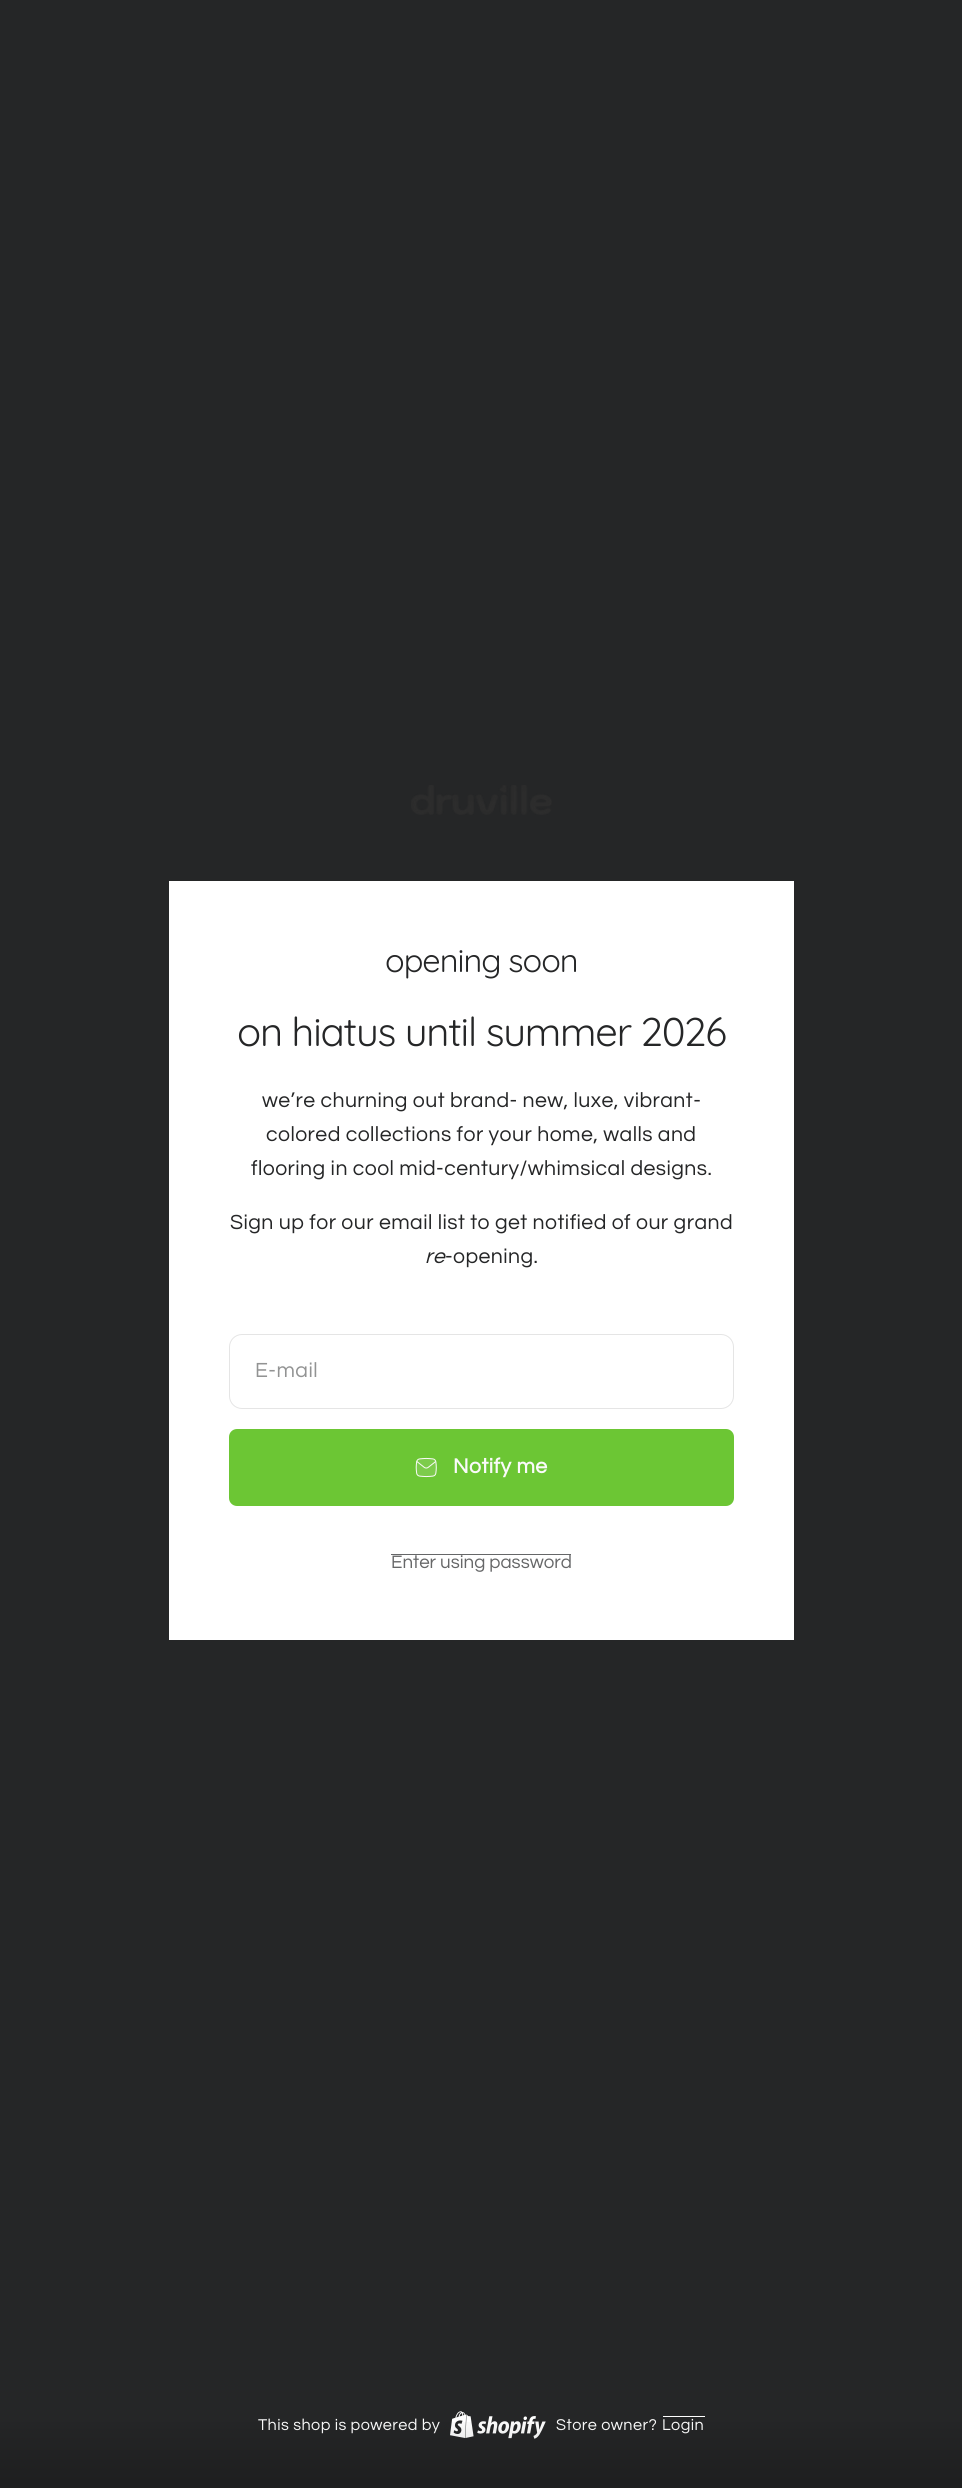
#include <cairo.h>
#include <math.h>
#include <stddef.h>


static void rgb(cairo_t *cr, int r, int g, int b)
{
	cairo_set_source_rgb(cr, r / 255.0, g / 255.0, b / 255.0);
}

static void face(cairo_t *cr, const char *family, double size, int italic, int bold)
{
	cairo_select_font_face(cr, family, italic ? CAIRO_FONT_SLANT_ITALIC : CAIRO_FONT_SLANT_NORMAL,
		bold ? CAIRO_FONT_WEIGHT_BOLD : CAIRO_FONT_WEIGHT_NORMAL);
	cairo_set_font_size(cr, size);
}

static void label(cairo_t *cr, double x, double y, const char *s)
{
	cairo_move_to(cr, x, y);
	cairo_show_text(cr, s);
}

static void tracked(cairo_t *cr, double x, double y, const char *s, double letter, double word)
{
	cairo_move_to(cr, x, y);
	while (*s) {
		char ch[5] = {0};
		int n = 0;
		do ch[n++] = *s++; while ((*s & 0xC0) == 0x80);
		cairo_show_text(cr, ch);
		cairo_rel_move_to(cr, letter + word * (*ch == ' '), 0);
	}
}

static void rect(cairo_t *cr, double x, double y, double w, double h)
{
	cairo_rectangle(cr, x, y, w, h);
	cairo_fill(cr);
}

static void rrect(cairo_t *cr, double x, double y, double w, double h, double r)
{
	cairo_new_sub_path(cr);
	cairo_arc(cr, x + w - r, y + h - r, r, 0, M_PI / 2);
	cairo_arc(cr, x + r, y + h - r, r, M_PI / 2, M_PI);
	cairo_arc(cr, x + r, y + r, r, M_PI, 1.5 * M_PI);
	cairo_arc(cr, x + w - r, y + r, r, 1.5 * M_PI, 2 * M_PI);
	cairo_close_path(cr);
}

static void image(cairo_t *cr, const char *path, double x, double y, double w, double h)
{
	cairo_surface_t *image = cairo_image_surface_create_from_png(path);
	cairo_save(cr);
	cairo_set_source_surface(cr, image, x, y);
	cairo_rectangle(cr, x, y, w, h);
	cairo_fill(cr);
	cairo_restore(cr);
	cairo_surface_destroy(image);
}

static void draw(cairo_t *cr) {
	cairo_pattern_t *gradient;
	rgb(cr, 37, 38, 39);
	cairo_paint(cr);
	image(cr, "image0.png", 411, 785, 141, 30);
	rgb(cr, 255, 255, 255);
	rect(cr, 169, 881, 625, 759);
	face(cr, "Quicksand", 32.5, 0, 0);
	rgb(cr, 37, 38, 39);
	tracked(cr, 385, 972, "opening soon", -1, 0);
	face(cr, "Quicksand", 40, 0, 0);
	tracked(cr, 237, 1046, "on hiatus until summer 2026", -1.2, 0);
	face(cr, "Questrial", 21.25, 0, 0);
	tracked(cr, 262, 1107, "we’re churning out brand- new, luxe, vibrant-", 0.43, 0);
	tracked(cr, 266, 1141, "colored collections for your home, walls and", 0.43, 0);
	tracked(cr, 251, 1175, "flooring in cool mid-century/whimsical designs.", 0.43, 0);
	tracked(cr, 230, 1229, "Sign up for our email list to get notified of our grand", 0.43, 0);
	face(cr, "Questrial", 21.25, 1, 0);
	tracked(cr, 425, 1263, "re", 0.43, 0);
	face(cr, "Questrial", 21.25, 0, 0);
	tracked(cr, 445, 1263, "-opening.", 0.43, 0);
	rrect(cr, 229.5, 1334.5, 504, 74, 12.5);
	rgb(cr, 229, 229, 229);
	cairo_set_line_width(cr, 1);
	cairo_stroke(cr);
	rgb(cr, 146, 147, 147);
	tracked(cr, 255, 1377, "E-mail", 0.43, 0);
	rgb(cr, 108, 198, 52);
	rrect(cr, 229, 1429, 505, 77, 8);
	cairo_fill(cr);
	image(cr, "image1.png", 415, 1457, 22, 21);
	face(cr, "Questrial", 21.25, 0, 1);
	rgb(cr, 250, 250, 249);
	tracked(cr, 453, 1473, "Notify me", 0.43, 0);
	rgb(cr, 102, 103, 104);
	rect(cr, 391, 1554, 180, 1);
	face(cr, "Questrial", 18.75, 0, 0);
	label(cr, 391, 1568, "Enter using password");
	face(cr, "Questrial", 16.25, 0, 0);
	rgb(cr, 255, 255, 255);
	tracked(cr, 258, 2430, "This shop is powered by", 0.43, 0);
	image(cr, "image2.png", 450, 2411, 96, 28);
	tracked(cr, 556, 2430, "Store owner?", 0.43, 0);
	tracked(cr, 662, 2430, "Login", 0.43, 0);
	rect(cr, 663, 2416, 42, 1);
	gradient = cairo_pattern_create_linear(481, 2414, 481, 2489);
	cairo_pattern_add_color_stop_rgba(gradient, 0, 0, 0, 0, 0);
	cairo_pattern_add_color_stop_rgba(gradient, 1, 0, 0, 0, 0.2);
	cairo_set_source(cr, gradient);
	cairo_pattern_destroy(gradient);
	rect(cr, 0, 2422, 962, 66);
}

int main(void) {
	cairo_surface_t *surface = cairo_image_surface_create(CAIRO_FORMAT_RGB24, 962, 2488);
	cairo_t *cr = cairo_create(surface);
	cairo_font_options_t *options = cairo_font_options_create();
	cairo_font_options_set_hint_metrics(options, CAIRO_HINT_METRICS_OFF);
	cairo_font_options_set_hint_style(options, CAIRO_HINT_STYLE_NONE);
	cairo_set_font_options(cr, options);
	cairo_set_miter_limit(cr, 4);
	draw(cr);
	cairo_surface_write_to_png(surface, "render.png");
	cairo_font_options_destroy(options);
	cairo_destroy(cr);
	cairo_surface_destroy(surface);
	return 0;
}
